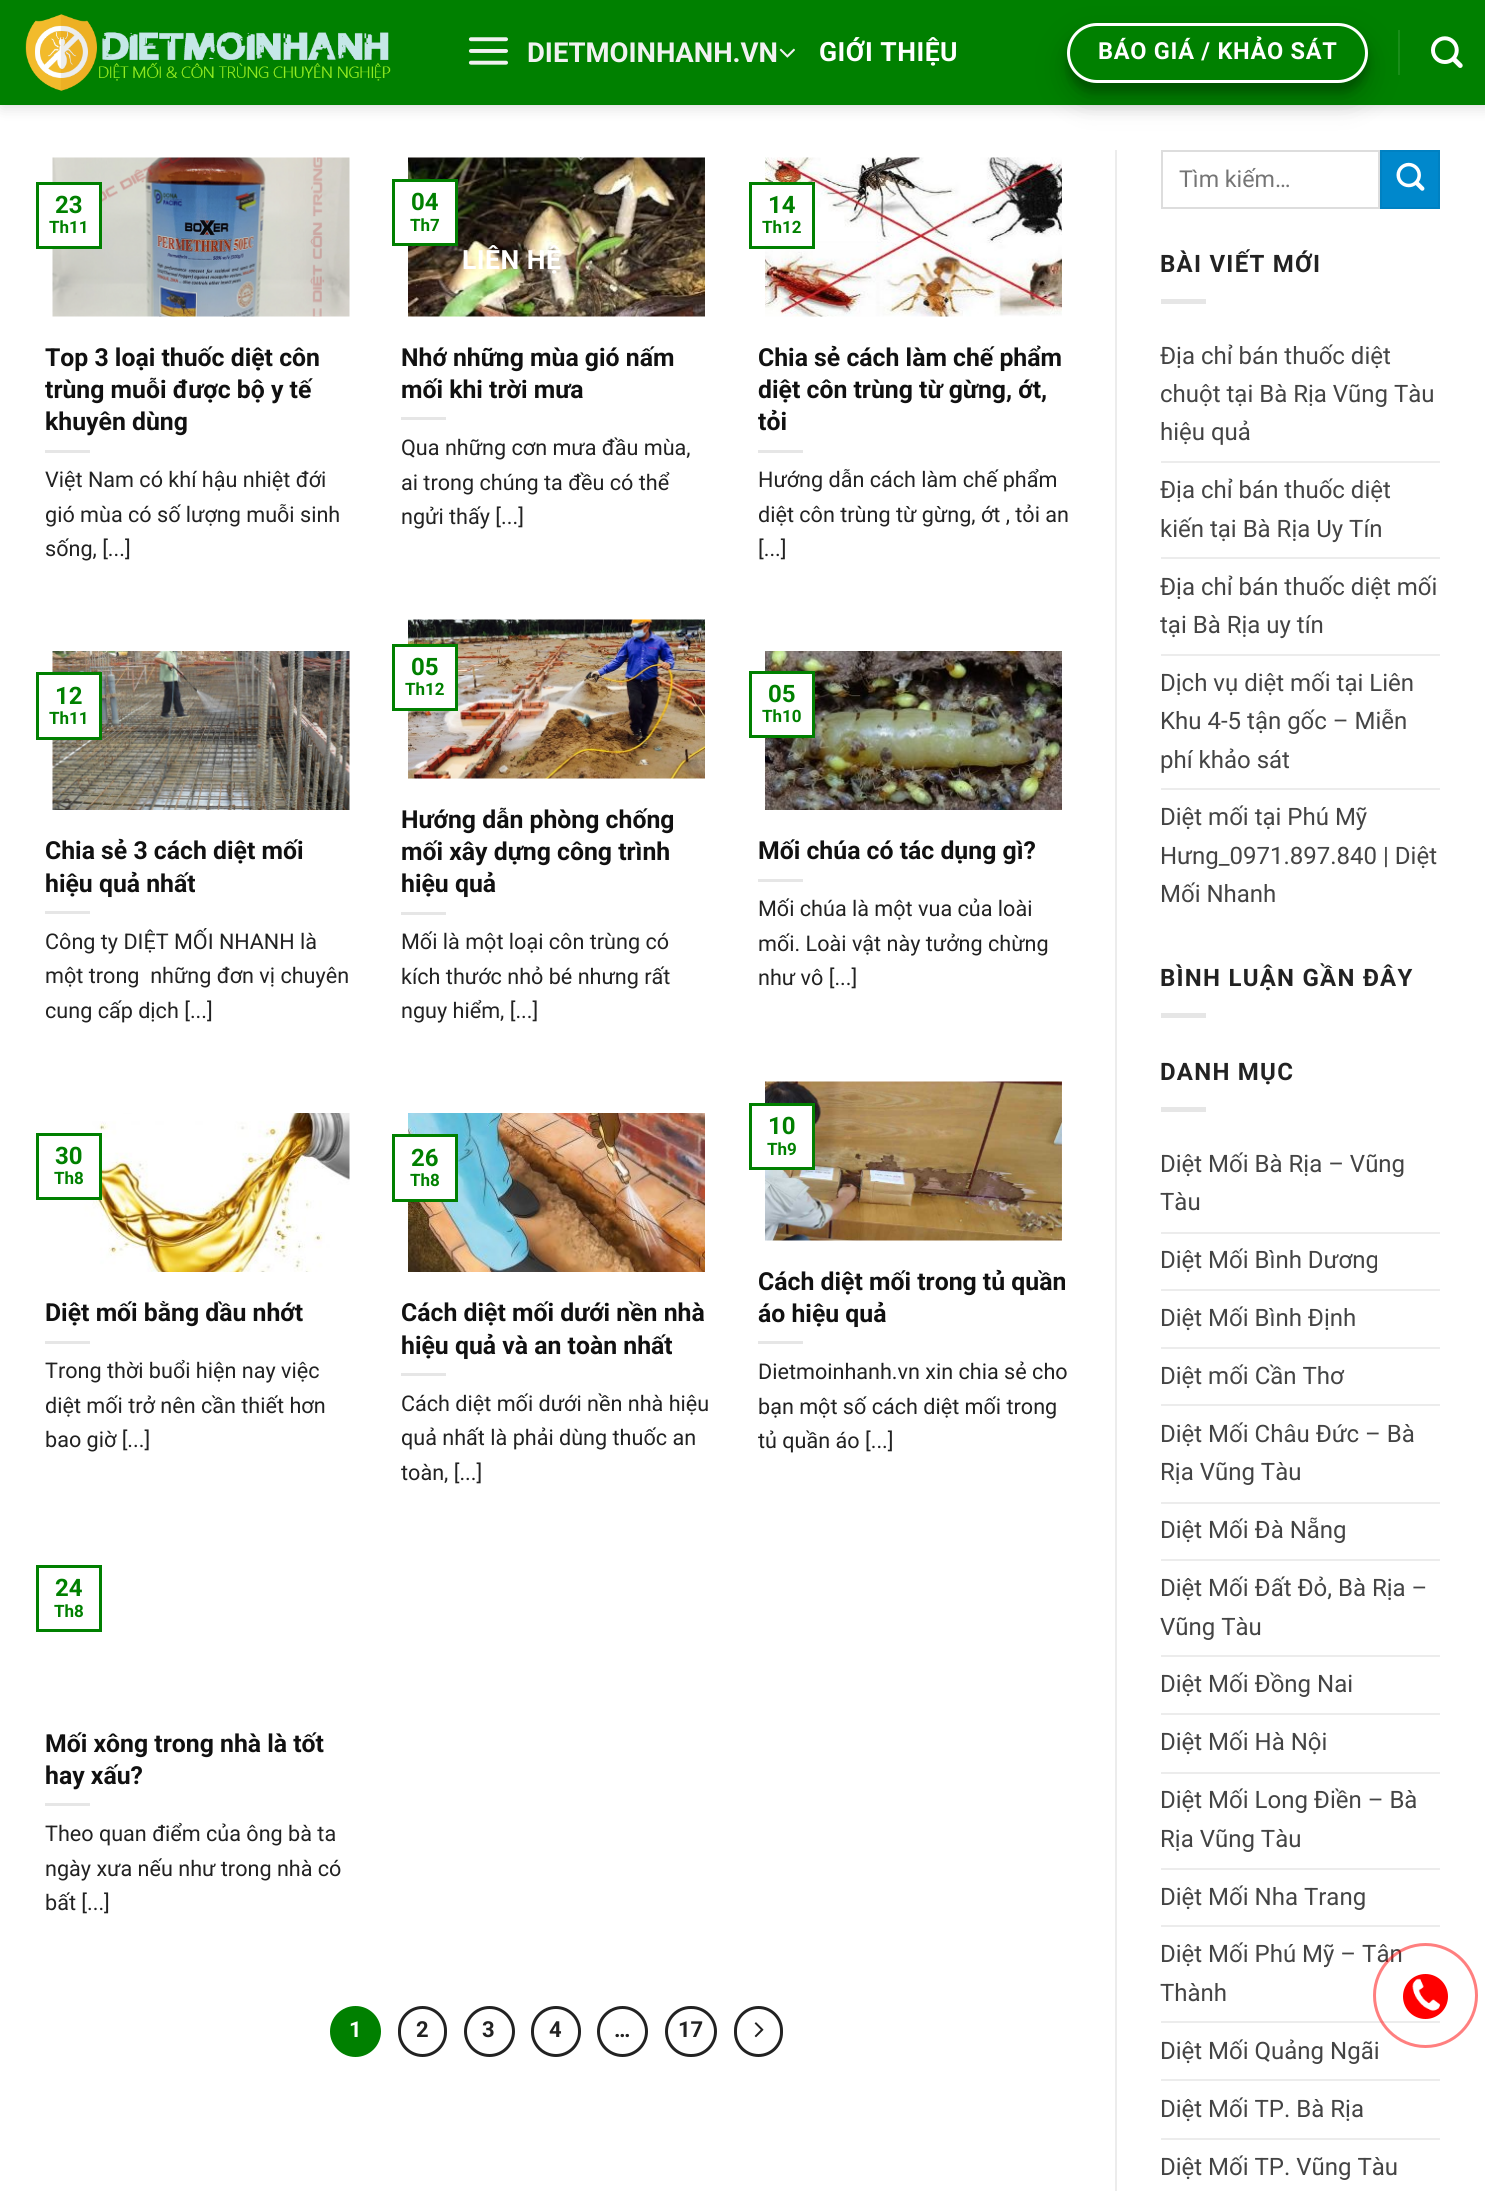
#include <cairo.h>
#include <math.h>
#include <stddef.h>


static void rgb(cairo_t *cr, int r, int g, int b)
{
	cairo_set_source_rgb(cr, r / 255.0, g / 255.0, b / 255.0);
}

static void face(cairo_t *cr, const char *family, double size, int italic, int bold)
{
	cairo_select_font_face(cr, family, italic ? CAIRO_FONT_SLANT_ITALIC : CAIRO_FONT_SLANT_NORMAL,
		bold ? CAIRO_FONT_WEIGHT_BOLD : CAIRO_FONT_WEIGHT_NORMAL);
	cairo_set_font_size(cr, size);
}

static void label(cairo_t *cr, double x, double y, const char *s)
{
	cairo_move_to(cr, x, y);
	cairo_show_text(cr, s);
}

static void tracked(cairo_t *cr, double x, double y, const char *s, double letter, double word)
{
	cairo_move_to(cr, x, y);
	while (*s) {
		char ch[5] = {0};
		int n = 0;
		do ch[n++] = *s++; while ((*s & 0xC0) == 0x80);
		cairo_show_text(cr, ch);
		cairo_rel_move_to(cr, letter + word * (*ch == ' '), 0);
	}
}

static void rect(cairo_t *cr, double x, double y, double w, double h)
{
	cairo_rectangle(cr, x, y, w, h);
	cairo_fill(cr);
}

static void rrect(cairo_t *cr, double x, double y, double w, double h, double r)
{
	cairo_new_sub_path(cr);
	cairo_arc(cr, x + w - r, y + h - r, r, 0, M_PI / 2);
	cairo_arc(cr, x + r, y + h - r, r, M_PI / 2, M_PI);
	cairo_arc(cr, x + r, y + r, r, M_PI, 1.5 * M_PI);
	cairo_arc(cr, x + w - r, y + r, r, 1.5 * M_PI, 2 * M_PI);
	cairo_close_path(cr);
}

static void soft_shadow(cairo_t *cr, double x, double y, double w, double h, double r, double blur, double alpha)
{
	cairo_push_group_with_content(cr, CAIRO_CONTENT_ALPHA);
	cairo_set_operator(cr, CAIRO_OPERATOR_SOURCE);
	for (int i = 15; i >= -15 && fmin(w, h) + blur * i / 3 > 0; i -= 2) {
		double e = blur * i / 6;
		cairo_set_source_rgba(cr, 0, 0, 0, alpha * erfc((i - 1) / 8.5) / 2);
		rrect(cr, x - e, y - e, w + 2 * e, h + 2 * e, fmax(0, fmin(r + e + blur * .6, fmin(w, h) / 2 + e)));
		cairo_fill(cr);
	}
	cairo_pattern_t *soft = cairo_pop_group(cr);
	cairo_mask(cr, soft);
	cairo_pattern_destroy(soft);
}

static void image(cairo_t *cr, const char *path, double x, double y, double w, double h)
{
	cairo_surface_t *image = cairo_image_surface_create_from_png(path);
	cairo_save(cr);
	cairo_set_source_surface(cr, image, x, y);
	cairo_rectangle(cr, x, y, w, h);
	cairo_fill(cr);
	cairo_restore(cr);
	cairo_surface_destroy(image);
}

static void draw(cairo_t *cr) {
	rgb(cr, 255, 255, 255);
	cairo_paint(cr);
	rgb(cr, 0, 0, 0);
	soft_shadow(cr, 2, 2, 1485, 105, 0, 7.5, 0.15);
	rgb(cr, 0, 128, 0);
	rect(cr, 0, 0, 1485, 105);
	image(cr, "image0.png", 25, 14, 366, 77);
	image(cr, "image1.png", 468, 37, 40, 28);
	face(cr, "Roboto", 27.5, 0, 1);
	rgb(cr, 241, 241, 241);
	label(cr, 527, 62, "DIETMOINHANH.VN");
	image(cr, "image2.png", 779, 48, 16, 10);
	face(cr, "Roboto", 26.5, 0, 1);
	rgb(cr, 255, 255, 255);
	tracked(cr, 819, 61, "GIỚI THIỆU", 0.5, 0);
	image(cr, "image6.png", 408, 157, 297, 160);
	image(cr, "image3.png", 577, 157, 8, 4);
	image(cr, "image7.png", 765, 157, 297, 160);
	cairo_set_source_rgba(cr, 1, 1, 1, 0.52);
	rect(cr, 778, 158, 3, 3);
	rgb(cr, 255, 255, 255);
	tracked(cr, 462, 269, "LIÊN HỆ", 0.5, 0);
	cairo_save(cr);
	cairo_set_fill_rule(cr, CAIRO_FILL_RULE_EVEN_ODD);
	cairo_new_path(cr);
	cairo_move_to(cr, 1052, 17);
	cairo_line_to(cr, 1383, 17);
	cairo_line_to(cr, 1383, 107);
	cairo_line_to(cr, 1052, 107);
	cairo_close_path(cr);
	cairo_move_to(cr, 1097, 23);
	cairo_line_to(cr, 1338, 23);
	cairo_curve_to(cr, 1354.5, 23, 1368, 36.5, 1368, 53);
	cairo_curve_to(cr, 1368, 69.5, 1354.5, 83, 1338, 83);
	cairo_line_to(cr, 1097, 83);
	cairo_curve_to(cr, 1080.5, 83, 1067, 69.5, 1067, 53);
	cairo_curve_to(cr, 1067, 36.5, 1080.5, 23, 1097, 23);
	cairo_close_path(cr);
	cairo_clip(cr);
	rgb(cr, 0, 0, 0);
	soft_shadow(cr, 1067, 32, 301, 60, 30, 4.5, 0.22);
	cairo_restore(cr);
	cairo_save(cr);
	cairo_set_fill_rule(cr, CAIRO_FILL_RULE_EVEN_ODD);
	cairo_new_path(cr);
	cairo_move_to(cr, 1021, 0);
	cairo_line_to(cr, 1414, 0);
	cairo_line_to(cr, 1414, 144);
	cairo_line_to(cr, 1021, 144);
	cairo_close_path(cr);
	cairo_move_to(cr, 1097, 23);
	cairo_line_to(cr, 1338, 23);
	cairo_curve_to(cr, 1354.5, 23, 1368, 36.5, 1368, 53);
	cairo_curve_to(cr, 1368, 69.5, 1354.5, 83, 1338, 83);
	cairo_line_to(cr, 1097, 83);
	cairo_curve_to(cr, 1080.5, 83, 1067, 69.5, 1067, 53);
	cairo_curve_to(cr, 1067, 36.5, 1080.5, 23, 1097, 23);
	cairo_close_path(cr);
	cairo_clip(cr);
	rgb(cr, 0, 0, 0);
	soft_shadow(cr, 1067, 38, 301, 60, 30, 15, 0.19);
	cairo_restore(cr);
	rrect(cr, 1068.5, 24.5, 298, 57, 28.5);
	cairo_set_line_width(cr, 3);
	cairo_stroke(cr);
	face(cr, "Roboto", 23.5, 0, 1);
	tracked(cr, 1098, 59, "BÁO GIÁ / KHẢO SÁT", 0.75, 0);
	rgb(cr, 26, 141, 26);
	rect(cr, 1398, 30, 2, 45);
	image(cr, "image4.png", 1431, 36, 32, 32);
	image(cr, "image5.png", 52, 157, 298, 160);
	rgb(cr, 255, 255, 255);
	rect(cr, 52, 185, 47, 61);
	cairo_rectangle(cr, 37.5, 183.5, 63, 64);
	rgb(cr, 0, 128, 0);
	cairo_stroke(cr);
	face(cr, "Roboto", 24, 0, 1);
	label(cr, 55, 213, "23");
	face(cr, "Roboto", 17, 0, 1);
	label(cr, 49, 233, "Th11");
	face(cr, "Roboto", 24.8, 0, 1);
	rgb(cr, 17, 17, 17);
	label(cr, 45, 366, "Top 3 loại thuốc diệt côn");
	label(cr, 45, 398, "trùng muỗi được bộ y tế");
	label(cr, 45, 430, "khuyên dùng");
	rgb(cr, 230, 230, 230);
	rect(cr, 45, 450, 45, 3);
	face(cr, "Roboto", 21.6, 0, 0);
	rgb(cr, 34, 34, 34);
	label(cr, 45, 487, "Việt Nam có khí hậu nhiệt đới");
	label(cr, 45, 522, "gió mùa có số lượng muỗi sinh");
	label(cr, 45, 556, "sống, [...]");
	rgb(cr, 255, 255, 255);
	rect(cr, 408, 182, 47, 61);
	cairo_rectangle(cr, 393.5, 180.5, 63, 64);
	rgb(cr, 0, 128, 0);
	cairo_stroke(cr);
	face(cr, "Roboto", 24, 0, 1);
	label(cr, 411, 210, "04");
	face(cr, "Roboto", 17, 0, 1);
	label(cr, 410, 231, "Th7");
	face(cr, "Roboto", 24.8, 0, 1);
	rgb(cr, 17, 17, 17);
	label(cr, 401, 366, "Nhớ những mùa gió nấm");
	label(cr, 401, 398, "mối khi trời mưa");
	rgb(cr, 230, 230, 230);
	rect(cr, 401, 417, 45, 3);
	face(cr, "Roboto", 21.6, 0, 0);
	rgb(cr, 34, 34, 34);
	label(cr, 401, 455, "Qua những cơn mưa đầu mùa,");
	label(cr, 401, 490, "ai trong chúng ta đều có thể");
	label(cr, 401, 524, "ngửi thấy [...]");
	rgb(cr, 255, 255, 255);
	rect(cr, 765, 185, 47, 59);
	cairo_rectangle(cr, 750.5, 183.5, 63, 64);
	rgb(cr, 0, 128, 0);
	cairo_stroke(cr);
	face(cr, "Roboto", 24, 0, 1);
	label(cr, 768, 213, "14");
	face(cr, "Roboto", 17, 0, 1);
	label(cr, 762, 233, "Th12");
	face(cr, "Roboto", 24.8, 0, 1);
	rgb(cr, 17, 17, 17);
	label(cr, 758, 366, "Chia sẻ cách làm chế phẩm");
	label(cr, 758, 398, "diệt côn trùng từ gừng, ớt,");
	label(cr, 758, 430, "tỏi");
	rgb(cr, 230, 230, 230);
	rect(cr, 758, 450, 45, 3);
	face(cr, "Roboto", 21.6, 0, 0);
	rgb(cr, 34, 34, 34);
	label(cr, 758, 487, "Hướng dẫn cách làm chế phẩm");
	label(cr, 758, 522, "diệt côn trùng từ gừng, ớt , tỏi an");
	label(cr, 758, 556, "[...]");
	image(cr, "image8.png", 52, 651, 298, 159);
	rgb(cr, 255, 255, 255);
	rect(cr, 52, 675, 47, 62);
	cairo_rectangle(cr, 37.5, 673.5, 63, 65);
	rgb(cr, 0, 128, 0);
	cairo_stroke(cr);
	face(cr, "Roboto", 24, 0, 1);
	label(cr, 55, 704, "12");
	face(cr, "Roboto", 17, 0, 1);
	label(cr, 49, 724, "Th11");
	face(cr, "Roboto", 24.8, 0, 1);
	rgb(cr, 17, 17, 17);
	label(cr, 45, 859, "Chia sẻ 3 cách diệt mối");
	label(cr, 45, 892, "hiệu quả nhất");
	rgb(cr, 230, 230, 230);
	rect(cr, 45, 911, 45, 3);
	face(cr, "Roboto", 21.6, 0, 0);
	rgb(cr, 34, 34, 34);
	label(cr, 45, 949, "Công ty DIỆT MỐI NHANH là");
	label(cr, 45, 983, "một trong  những đơn vị chuyên");
	label(cr, 45, 1018, "cung cấp dịch [...]");
	image(cr, "image9.png", 408, 619, 297, 160);
	rgb(cr, 255, 255, 255);
	rect(cr, 408, 647, 47, 61);
	cairo_rectangle(cr, 393.5, 645.5, 63, 64);
	rgb(cr, 0, 128, 0);
	cairo_stroke(cr);
	face(cr, "Roboto", 24, 0, 1);
	label(cr, 411, 675, "05");
	face(cr, "Roboto", 17, 0, 1);
	label(cr, 405, 695, "Th12");
	face(cr, "Roboto", 24.8, 0, 1);
	rgb(cr, 17, 17, 17);
	label(cr, 401, 828, "Hướng dẫn phòng chống");
	label(cr, 401, 860, "mối xây dựng công trình");
	label(cr, 401, 892, "hiệu quả");
	rgb(cr, 230, 230, 230);
	rect(cr, 401, 912, 45, 3);
	face(cr, "Roboto", 21.6, 0, 0);
	rgb(cr, 34, 34, 34);
	label(cr, 401, 949, "Mối là một loại côn trùng có");
	label(cr, 401, 984, "kích thước nhỏ bé nhưng rất");
	label(cr, 401, 1018, "nguy hiểm, [...]");
	image(cr, "image10.png", 765, 651, 297, 159);
	rgb(cr, 255, 255, 255);
	rect(cr, 765, 674, 47, 61);
	cairo_rectangle(cr, 750.5, 672.5, 63, 64);
	rgb(cr, 0, 128, 0);
	cairo_stroke(cr);
	face(cr, "Roboto", 24, 0, 1);
	label(cr, 768, 702, "05");
	face(cr, "Roboto", 17, 0, 1);
	label(cr, 762, 722, "Th10");
	face(cr, "Roboto", 24.8, 0, 1);
	rgb(cr, 17, 17, 17);
	label(cr, 758, 859, "Mối chúa có tác dụng gì?");
	rgb(cr, 230, 230, 230);
	rect(cr, 758, 879, 45, 3);
	face(cr, "Roboto", 21.6, 0, 0);
	rgb(cr, 34, 34, 34);
	label(cr, 758, 916, "Mối chúa là một vua của loài");
	label(cr, 758, 951, "mối. Loài vật này tưởng chừng");
	label(cr, 758, 985, "như vô [...]");
	image(cr, "image11.png", 64, 1113, 286, 159);
	rgb(cr, 255, 255, 255);
	rect(cr, 64, 1136, 35, 61);
	cairo_rectangle(cr, 37.5, 1134.5, 63, 64);
	rgb(cr, 0, 128, 0);
	cairo_stroke(cr);
	face(cr, "Roboto", 24, 0, 1);
	label(cr, 55, 1164, "30");
	face(cr, "Roboto", 17, 0, 1);
	label(cr, 54, 1184, "Th8");
	face(cr, "Roboto", 24.8, 0, 1);
	rgb(cr, 17, 17, 17);
	label(cr, 45, 1321, "Diệt mối bằng dầu nhớt");
	rgb(cr, 230, 230, 230);
	rect(cr, 45, 1341, 45, 3);
	face(cr, "Roboto", 21.6, 0, 0);
	rgb(cr, 34, 34, 34);
	label(cr, 45, 1378, "Trong thời buổi hiện nay việc");
	label(cr, 45, 1413, "diệt mối trở nên cần thiết hơn");
	label(cr, 45, 1447, "bao giờ [...]");
	image(cr, "image12.png", 408, 1113, 297, 159);
	rgb(cr, 255, 255, 255);
	rect(cr, 408, 1137, 47, 62);
	cairo_rectangle(cr, 393.5, 1135.5, 63, 65);
	rgb(cr, 0, 128, 0);
	cairo_stroke(cr);
	face(cr, "Roboto", 24, 0, 1);
	label(cr, 411, 1166, "26");
	face(cr, "Roboto", 17, 0, 1);
	label(cr, 410, 1186, "Th8");
	face(cr, "Roboto", 24.8, 0, 1);
	rgb(cr, 17, 17, 17);
	label(cr, 401, 1321, "Cách diệt mối dưới nền nhà");
	label(cr, 401, 1354, "hiệu quả và an toàn nhất");
	rgb(cr, 230, 230, 230);
	rect(cr, 401, 1373, 45, 3);
	face(cr, "Roboto", 21.6, 0, 0);
	rgb(cr, 34, 34, 34);
	label(cr, 401, 1411, "Cách diệt mối dưới nền nhà hiệu");
	label(cr, 401, 1445, "quả nhất là phải dùng thuốc an");
	label(cr, 401, 1480, "toàn, [...]");
	image(cr, "image13.png", 765, 1081, 297, 160);
	rgb(cr, 255, 255, 255);
	rect(cr, 765, 1106, 47, 61);
	cairo_rectangle(cr, 750.5, 1104.5, 63, 64);
	rgb(cr, 0, 128, 0);
	cairo_stroke(cr);
	face(cr, "Roboto", 24, 0, 1);
	label(cr, 768, 1134, "10");
	face(cr, "Roboto", 17, 0, 1);
	label(cr, 767, 1155, "Th9");
	face(cr, "Roboto", 24.8, 0, 1);
	rgb(cr, 17, 17, 17);
	label(cr, 758, 1290, "Cách diệt mối trong tủ quần");
	label(cr, 758, 1322, "áo hiệu quả");
	rgb(cr, 230, 230, 230);
	rect(cr, 758, 1341, 45, 3);
	face(cr, "Roboto", 21.6, 0, 0);
	rgb(cr, 34, 34, 34);
	label(cr, 758, 1379, "Dietmoinhanh.vn xin chia sẻ cho");
	label(cr, 758, 1414, "bạn một số cách diệt mối trong");
	label(cr, 758, 1448, "tủ quần áo [...]");
	cairo_rectangle(cr, 37.5, 1566.5, 63, 64);
	rgb(cr, 0, 128, 0);
	cairo_stroke(cr);
	face(cr, "Roboto", 24, 0, 1);
	label(cr, 55, 1596, "24");
	face(cr, "Roboto", 17, 0, 1);
	label(cr, 54, 1617, "Th8");
	face(cr, "Roboto", 24.8, 0, 1);
	rgb(cr, 17, 17, 17);
	label(cr, 45, 1752, "Mối xông trong nhà là tốt");
	label(cr, 45, 1784, "hay xấu?");
	rgb(cr, 230, 230, 230);
	rect(cr, 45, 1803, 45, 3);
	face(cr, "Roboto", 21.6, 0, 0);
	rgb(cr, 34, 34, 34);
	label(cr, 45, 1841, "Theo quan điểm của ông bà ta");
	label(cr, 45, 1876, "ngày xưa nếu như trong nhà có");
	label(cr, 45, 1910, "bất [...]");
	rgb(cr, 0, 128, 0);
	cairo_new_path(cr);
	cairo_arc(cr, 355.5, 2031.5, 24, 0, 2 * M_PI);
	cairo_fill_preserve(cr);
	cairo_stroke(cr);
	face(cr, "Roboto", 22, 0, 1);
	rgb(cr, 255, 255, 255);
	label(cr, 349, 2037, "1");
	rrect(cr, 399.5, 2007.5, 46, 48, 23);
	rgb(cr, 34, 34, 34);
	cairo_stroke(cr);
	label(cr, 416, 2037, "2");
	cairo_new_path(cr);
	cairo_arc(cr, 489.5, 2031.5, 24, 0, 2 * M_PI);
	cairo_stroke(cr);
	label(cr, 482, 2037, "3");
	rrect(cr, 532.5, 2007.5, 47, 48, 23.5);
	cairo_stroke(cr);
	label(cr, 549, 2037, "4");
	cairo_new_path(cr);
	cairo_arc(cr, 622.5, 2031.5, 24, 0, 2 * M_PI);
	cairo_stroke(cr);
	label(cr, 614, 2037, "…");
	rrect(cr, 666.5, 2007.5, 49, 48, 24);
	cairo_stroke(cr);
	label(cr, 678, 2037, "17");
	rrect(cr, 735.5, 2007.5, 46, 48, 23);
	cairo_stroke(cr);
	image(cr, "image14.png", 754, 2022, 10, 16);
	rgb(cr, 236, 236, 236);
	rect(cr, 1115, 150, 2, 2041);
	cairo_rectangle(cr, 1162, 151, 217, 57);
	rgb(cr, 221, 221, 221);
	cairo_set_line_width(cr, 2);
	cairo_stroke(cr);
	face(cr, "Roboto", 23.25, 0, 0);
	rgb(cr, 117, 117, 117);
	label(cr, 1179, 187, "Tìm kiếm…");
	rgb(cr, 0, 136, 204);
	cairo_rectangle(cr, 1381, 151, 58, 57);
	cairo_fill_preserve(cr);
	rgb(cr, 0, 129, 194);
	cairo_stroke(cr);
	image(cr, "image15.png", 1396, 162, 29, 29);
	face(cr, "Roboto", 24, 0, 1);
	rgb(cr, 34, 34, 34);
	tracked(cr, 1160, 272, "BÀI VIẾT MỚI", 1.25, 0);
	rgb(cr, 230, 230, 230);
	rect(cr, 1161, 299, 45, 5);
	face(cr, "Roboto", 24, 0, 0);
	rgb(cr, 68, 68, 68);
	label(cr, 1160, 364, "Địa chỉ bán thuốc diệt");
	label(cr, 1160, 402, "chuột tại Bà Rịa Vũng Tàu");
	label(cr, 1160, 440, "hiệu quả");
	rgb(cr, 236, 236, 236);
	rect(cr, 1161, 461, 279, 2);
	rgb(cr, 68, 68, 68);
	label(cr, 1160, 498, "Địa chỉ bán thuốc diệt");
	label(cr, 1160, 537, "kiến tại Bà Rịa Uy Tín");
	rgb(cr, 236, 236, 236);
	rect(cr, 1161, 557, 279, 2);
	rgb(cr, 68, 68, 68);
	label(cr, 1160, 595, "Địa chỉ bán thuốc diệt mối");
	label(cr, 1160, 633, "tại Bà Rịa uy tín");
	rgb(cr, 236, 236, 236);
	rect(cr, 1161, 654, 279, 2);
	rgb(cr, 68, 68, 68);
	label(cr, 1160, 691, "Dịch vụ diệt mối tại Liên");
	label(cr, 1160, 729, "Khu 4-5 tận gốc – Miễn");
	label(cr, 1160, 768, "phí khảo sát");
	rgb(cr, 236, 236, 236);
	rect(cr, 1161, 788, 279, 2);
	rgb(cr, 68, 68, 68);
	label(cr, 1160, 825, "Diệt mối tại Phú Mỹ");
	label(cr, 1160, 864, "Hưng_0971.897.840 | Diệt");
	label(cr, 1160, 902, "Mối Nhanh");
	face(cr, "Roboto", 24, 0, 1);
	rgb(cr, 34, 34, 34);
	tracked(cr, 1160, 986, "BÌNH LUẬN GẦN ĐÂY", 1.25, 0);
	rgb(cr, 230, 230, 230);
	rect(cr, 1161, 1013, 45, 5);
	rgb(cr, 34, 34, 34);
	tracked(cr, 1160, 1080, "DANH MỤC", 1.25, 0);
	rgb(cr, 230, 230, 230);
	rect(cr, 1161, 1107, 45, 5);
	face(cr, "Roboto", 24, 0, 0);
	rgb(cr, 68, 68, 68);
	label(cr, 1160, 1172, "Diệt Mối Bà Rịa – Vũng");
	label(cr, 1160, 1210, "Tàu");
	rgb(cr, 236, 236, 236);
	rect(cr, 1161, 1232, 279, 2);
	rgb(cr, 68, 68, 68);
	label(cr, 1160, 1268, "Diệt Mối Bình Dương");
	rgb(cr, 236, 236, 236);
	rect(cr, 1161, 1289, 279, 2);
	rgb(cr, 68, 68, 68);
	label(cr, 1160, 1326, "Diệt Mối Bình Định");
	rgb(cr, 236, 236, 236);
	rect(cr, 1161, 1347, 279, 2);
	rgb(cr, 68, 68, 68);
	label(cr, 1160, 1384, "Diệt mối Cần Thơ");
	rgb(cr, 236, 236, 236);
	rect(cr, 1161, 1404, 279, 2);
	rgb(cr, 68, 68, 68);
	label(cr, 1160, 1442, "Diệt Mối Châu Đức – Bà");
	label(cr, 1160, 1480, "Rịa Vũng Tàu");
	rgb(cr, 236, 236, 236);
	rect(cr, 1161, 1502, 279, 2);
	rgb(cr, 68, 68, 68);
	label(cr, 1160, 1538, "Diệt Mối Đà Nẵng");
	rgb(cr, 236, 236, 236);
	rect(cr, 1161, 1559, 279, 2);
	rgb(cr, 68, 68, 68);
	label(cr, 1160, 1596, "Diệt Mối Đất Đỏ, Bà Rịa –");
	label(cr, 1160, 1635, "Vũng Tàu");
	rgb(cr, 236, 236, 236);
	rect(cr, 1161, 1655, 279, 2);
	rgb(cr, 68, 68, 68);
	label(cr, 1160, 1692, "Diệt Mối Đồng Nai");
	rgb(cr, 236, 236, 236);
	rect(cr, 1161, 1713, 279, 2);
	rgb(cr, 68, 68, 68);
	label(cr, 1160, 1750, "Diệt Mối Hà Nội");
	rgb(cr, 236, 236, 236);
	rect(cr, 1161, 1772, 279, 2);
	rgb(cr, 68, 68, 68);
	label(cr, 1160, 1808, "Diệt Mối Long Điền – Bà");
	label(cr, 1160, 1847, "Rịa Vũng Tàu");
	rgb(cr, 236, 236, 236);
	rect(cr, 1161, 1868, 279, 2);
	rgb(cr, 68, 68, 68);
	label(cr, 1160, 1905, "Diệt Mối Nha Trang");
	rgb(cr, 236, 236, 236);
	rect(cr, 1161, 1925, 279, 2);
	rgb(cr, 68, 68, 68);
	label(cr, 1160, 1962, "Diệt Mối Phú Mỹ – Tân");
	label(cr, 1160, 2001, "Thành");
	rgb(cr, 236, 236, 236);
	rect(cr, 1161, 2021, 279, 2);
	rgb(cr, 68, 68, 68);
	label(cr, 1160, 2059, "Diệt Mối Quảng Ngãi");
	rgb(cr, 236, 236, 236);
	rect(cr, 1161, 2079, 279, 2);
	rgb(cr, 68, 68, 68);
	label(cr, 1160, 2117, "Diệt Mối TP. Bà Rịa");
	rgb(cr, 236, 236, 236);
	rect(cr, 1161, 2138, 279, 2);
	rgb(cr, 68, 68, 68);
	label(cr, 1160, 2175, "Diệt Mối TP. Vũng Tàu");
	cairo_new_path(cr);
	cairo_arc(cr, 1425.5, 1995.5, 51, 0, 2 * M_PI);
	cairo_set_source_rgba(cr, 1, 0, 0, 0.5);
	cairo_set_line_width(cr, 3);
	cairo_stroke(cr);
	rgb(cr, 255, 0, 0);
	cairo_arc(cr, 1425.5, 1996.5, 22.5, 0, 2 * M_PI);
	cairo_fill(cr);
	image(cr, "image16.png", 1412, 1978, 28, 33);
}

int main(void) {
	cairo_surface_t *surface = cairo_image_surface_create(CAIRO_FORMAT_RGB24, 1485, 2191);
	cairo_t *cr = cairo_create(surface);
	cairo_font_options_t *options = cairo_font_options_create();
	cairo_font_options_set_hint_metrics(options, CAIRO_HINT_METRICS_OFF);
	cairo_font_options_set_hint_style(options, CAIRO_HINT_STYLE_NONE);
	cairo_set_font_options(cr, options);
	cairo_set_miter_limit(cr, 4);
	draw(cr);
	cairo_surface_write_to_png(surface, "render.png");
	cairo_font_options_destroy(options);
	cairo_destroy(cr);
	cairo_surface_destroy(surface);
	return 0;
}
